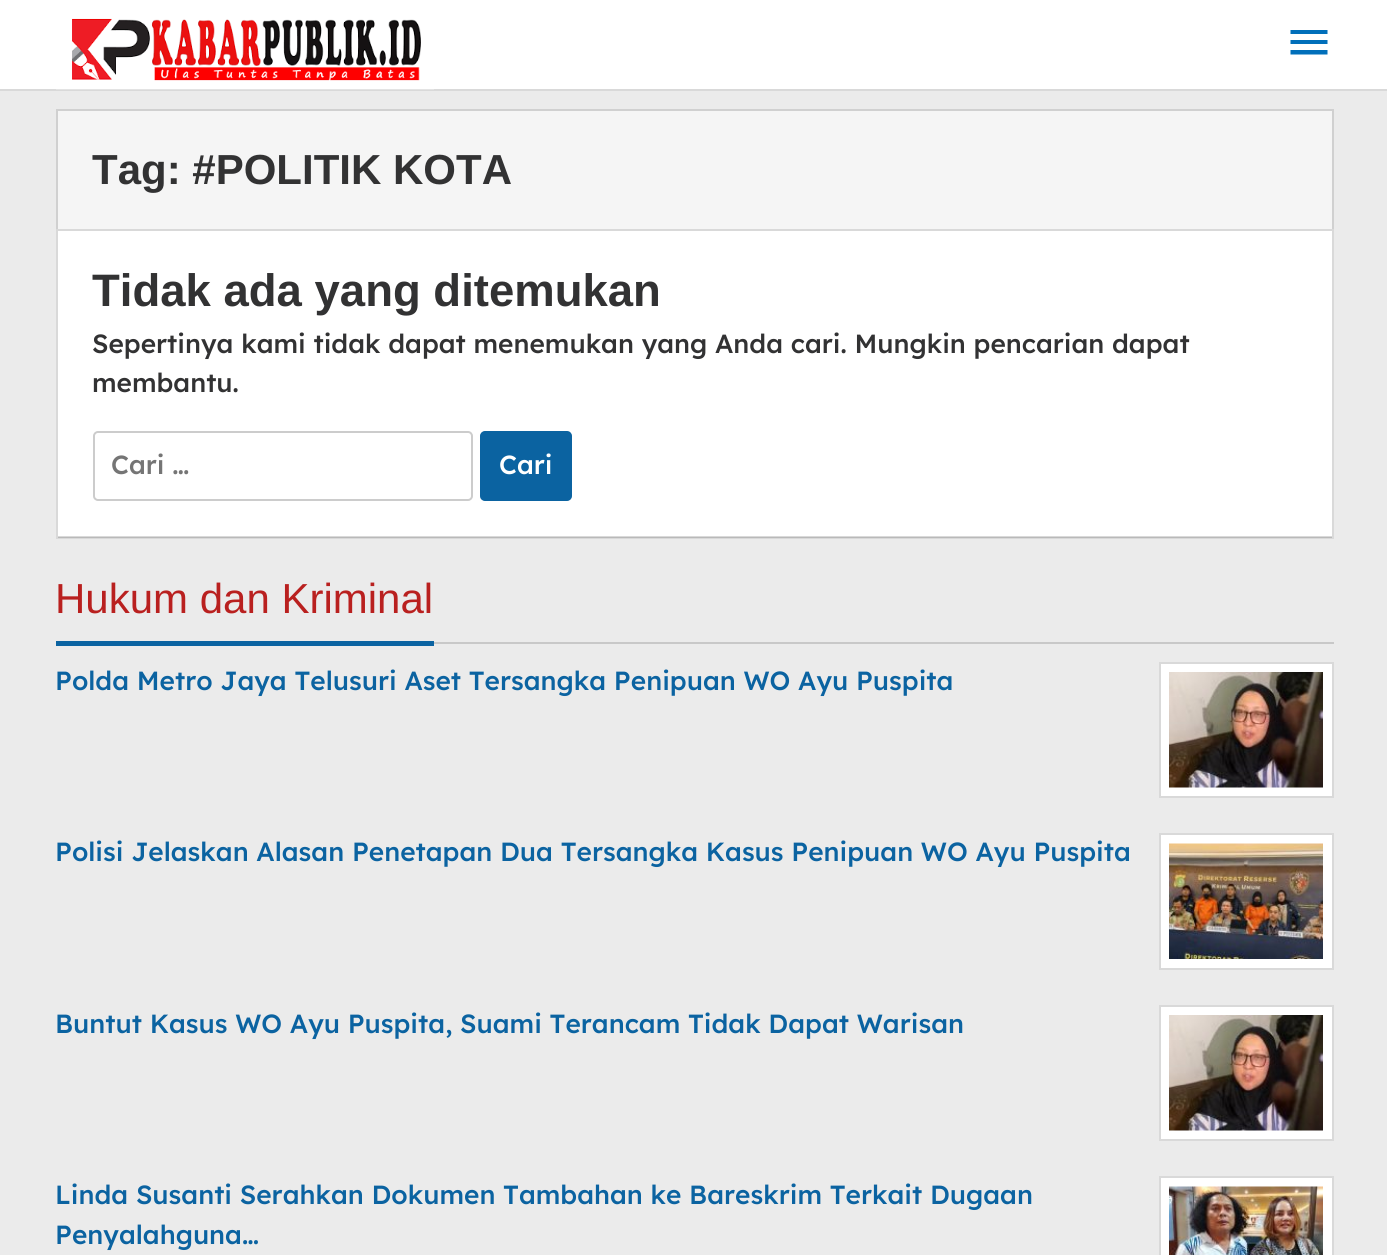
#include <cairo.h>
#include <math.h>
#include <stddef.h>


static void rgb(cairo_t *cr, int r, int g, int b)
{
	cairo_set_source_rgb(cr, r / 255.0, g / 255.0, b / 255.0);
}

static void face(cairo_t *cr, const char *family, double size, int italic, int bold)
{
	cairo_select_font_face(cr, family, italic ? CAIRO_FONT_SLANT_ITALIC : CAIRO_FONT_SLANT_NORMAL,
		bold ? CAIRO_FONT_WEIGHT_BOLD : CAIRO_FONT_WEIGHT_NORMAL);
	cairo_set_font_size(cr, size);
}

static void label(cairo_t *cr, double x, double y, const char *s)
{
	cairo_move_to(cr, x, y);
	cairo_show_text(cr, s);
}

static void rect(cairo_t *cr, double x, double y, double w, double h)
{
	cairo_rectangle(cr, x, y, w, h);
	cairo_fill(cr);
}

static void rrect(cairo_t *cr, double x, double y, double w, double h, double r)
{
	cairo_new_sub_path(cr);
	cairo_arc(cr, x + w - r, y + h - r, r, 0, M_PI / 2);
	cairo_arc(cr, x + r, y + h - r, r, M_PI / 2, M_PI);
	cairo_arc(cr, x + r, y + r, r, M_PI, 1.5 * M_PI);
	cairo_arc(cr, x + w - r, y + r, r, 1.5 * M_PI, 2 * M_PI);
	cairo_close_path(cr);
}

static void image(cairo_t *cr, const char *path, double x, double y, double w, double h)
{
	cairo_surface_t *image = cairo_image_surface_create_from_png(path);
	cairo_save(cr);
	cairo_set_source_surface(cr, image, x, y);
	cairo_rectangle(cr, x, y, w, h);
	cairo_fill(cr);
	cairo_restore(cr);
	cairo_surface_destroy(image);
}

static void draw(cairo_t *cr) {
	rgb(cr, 235, 235, 235);
	cairo_paint(cr);
	rgb(cr, 255, 255, 255);
	rect(cr, 0, 0, 1387, 89);
	rgb(cr, 217, 217, 217);
	rect(cr, 0, 89, 1387, 2);
	image(cr, "image0.png", 56, 18, 378, 72);
	rgb(cr, 1, 111, 186);
	cairo_new_path(cr);
	cairo_move_to(cr, 1290.5, 54.5);
	cairo_line_to(cr, 1327.5, 54.5);
	cairo_line_to(cr, 1327.5, 50);
	cairo_line_to(cr, 1290.5, 50);
	cairo_close_path(cr);
	cairo_move_to(cr, 1290.5, 44);
	cairo_line_to(cr, 1327.5, 44);
	cairo_line_to(cr, 1327.5, 40);
	cairo_line_to(cr, 1290.5, 40);
	cairo_close_path(cr);
	cairo_move_to(cr, 1290.5, 30);
	cairo_line_to(cr, 1290.5, 34);
	cairo_line_to(cr, 1327.5, 34);
	cairo_line_to(cr, 1327.5, 30);
	cairo_close_path(cr);
	cairo_fill(cr);
	rgb(cr, 245, 245, 245);
	cairo_rectangle(cr, 57, 110, 1276, 120);
	cairo_fill_preserve(cr);
	rgb(cr, 208, 208, 208);
	cairo_stroke(cr);
	face(cr, "Liberation Sans", 42, 0, 1);
	rgb(cr, 50, 50, 51);
	label(cr, 92, 184, "Tag: #POLITIK KOTA");
	rgb(cr, 255, 255, 255);
	cairo_rectangle(cr, 57, 230, 1276, 308);
	cairo_fill_preserve(cr);
	rgb(cr, 217, 217, 217);
	cairo_stroke(cr);
	cairo_set_source_rgba(cr, 0, 0, 0, 0.15);
	rect(cr, 58, 536, 1274, 2);
	face(cr, "Liberation Sans", 45.5, 0, 1);
	rgb(cr, 50, 50, 51);
	label(cr, 92, 306, "Tidak ada yang ditemukan");
	face(cr, "Lexend Deca Medium", 26.25, 0, 0);
	label(cr, 92, 353, "Sepertinya kami tidak dapat menemukan yang Anda cari. Mungkin pencarian dapat");
	label(cr, 92, 392, "membantu.");
	rrect(cr, 94, 432, 378, 68, 4);
	rgb(cr, 204, 204, 204);
	cairo_stroke(cr);
	rgb(cr, 117, 117, 117);
	label(cr, 111, 474, "Cari …");
	rgb(cr, 11, 99, 161);
	rrect(cr, 481, 432, 90, 68, 4);
	cairo_fill_preserve(cr);
	cairo_stroke(cr);
	rgb(cr, 255, 255, 255);
	label(cr, 499, 474, "Cari");
	rgb(cr, 200, 200, 200);
	rect(cr, 434, 642, 900, 2);
	rgb(cr, 11, 99, 161);
	rect(cr, 56, 641, 378, 5);
	face(cr, "Liberation Sans", 42, 0, 0);
	rgb(cr, 185, 32, 31);
	label(cr, 55, 613, "Hukum dan Kriminal");
	face(cr, "Lexend Deca Medium", 26.25, 0, 0);
	rgb(cr, 11, 99, 161);
	label(cr, 55, 690, "Polda Metro Jaya Telusuri Aset Tersangka Penipuan WO Ayu Puspita");
	rgb(cr, 255, 255, 255);
	cairo_rectangle(cr, 1160, 663, 173, 134);
	cairo_fill_preserve(cr);
	rgb(cr, 217, 217, 217);
	cairo_stroke(cr);
	image(cr, "image1.png", 1169, 672, 154, 116);
	rgb(cr, 11, 99, 161);
	label(cr, 55, 861, "Polisi Jelaskan Alasan Penetapan Dua Tersangka Kasus Penipuan WO Ayu Puspita");
	rgb(cr, 255, 255, 255);
	cairo_rectangle(cr, 1160, 834, 173, 135);
	cairo_fill_preserve(cr);
	rgb(cr, 217, 217, 217);
	cairo_stroke(cr);
	image(cr, "image2.png", 1169, 843, 154, 116);
	rgb(cr, 11, 99, 161);
	label(cr, 55, 1033, "Buntut Kasus WO Ayu Puspita, Suami Terancam Tidak Dapat Warisan");
	rgb(cr, 255, 255, 255);
	cairo_rectangle(cr, 1160, 1006, 173, 134);
	cairo_fill_preserve(cr);
	rgb(cr, 217, 217, 217);
	cairo_stroke(cr);
	image(cr, "image1.png", 1169, 1015, 154, 116);
	rgb(cr, 11, 99, 161);
	label(cr, 55, 1204, "Linda Susanti Serahkan Dokumen Tambahan ke Bareskrim Terkait Dugaan");
	rgb(cr, 255, 255, 255);
	cairo_rectangle(cr, 1160, 1177, 173, 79);
	cairo_fill_preserve(cr);
	rgb(cr, 217, 217, 217);
	cairo_stroke(cr);
	image(cr, "image3.png", 1169, 1186, 154, 69);
	rgb(cr, 11, 99, 161);
	label(cr, 55, 1244, "Penyalahguna…");
}

int main(void) {
	cairo_surface_t *surface = cairo_image_surface_create(CAIRO_FORMAT_RGB24, 1387, 1255);
	cairo_t *cr = cairo_create(surface);
	cairo_font_options_t *options = cairo_font_options_create();
	cairo_font_options_set_hint_metrics(options, CAIRO_HINT_METRICS_OFF);
	cairo_font_options_set_hint_style(options, CAIRO_HINT_STYLE_NONE);
	cairo_set_font_options(cr, options);
	cairo_set_miter_limit(cr, 4);
	draw(cr);
	cairo_surface_write_to_png(surface, "render.png");
	cairo_font_options_destroy(options);
	cairo_destroy(cr);
	cairo_surface_destroy(surface);
	return 0;
}
